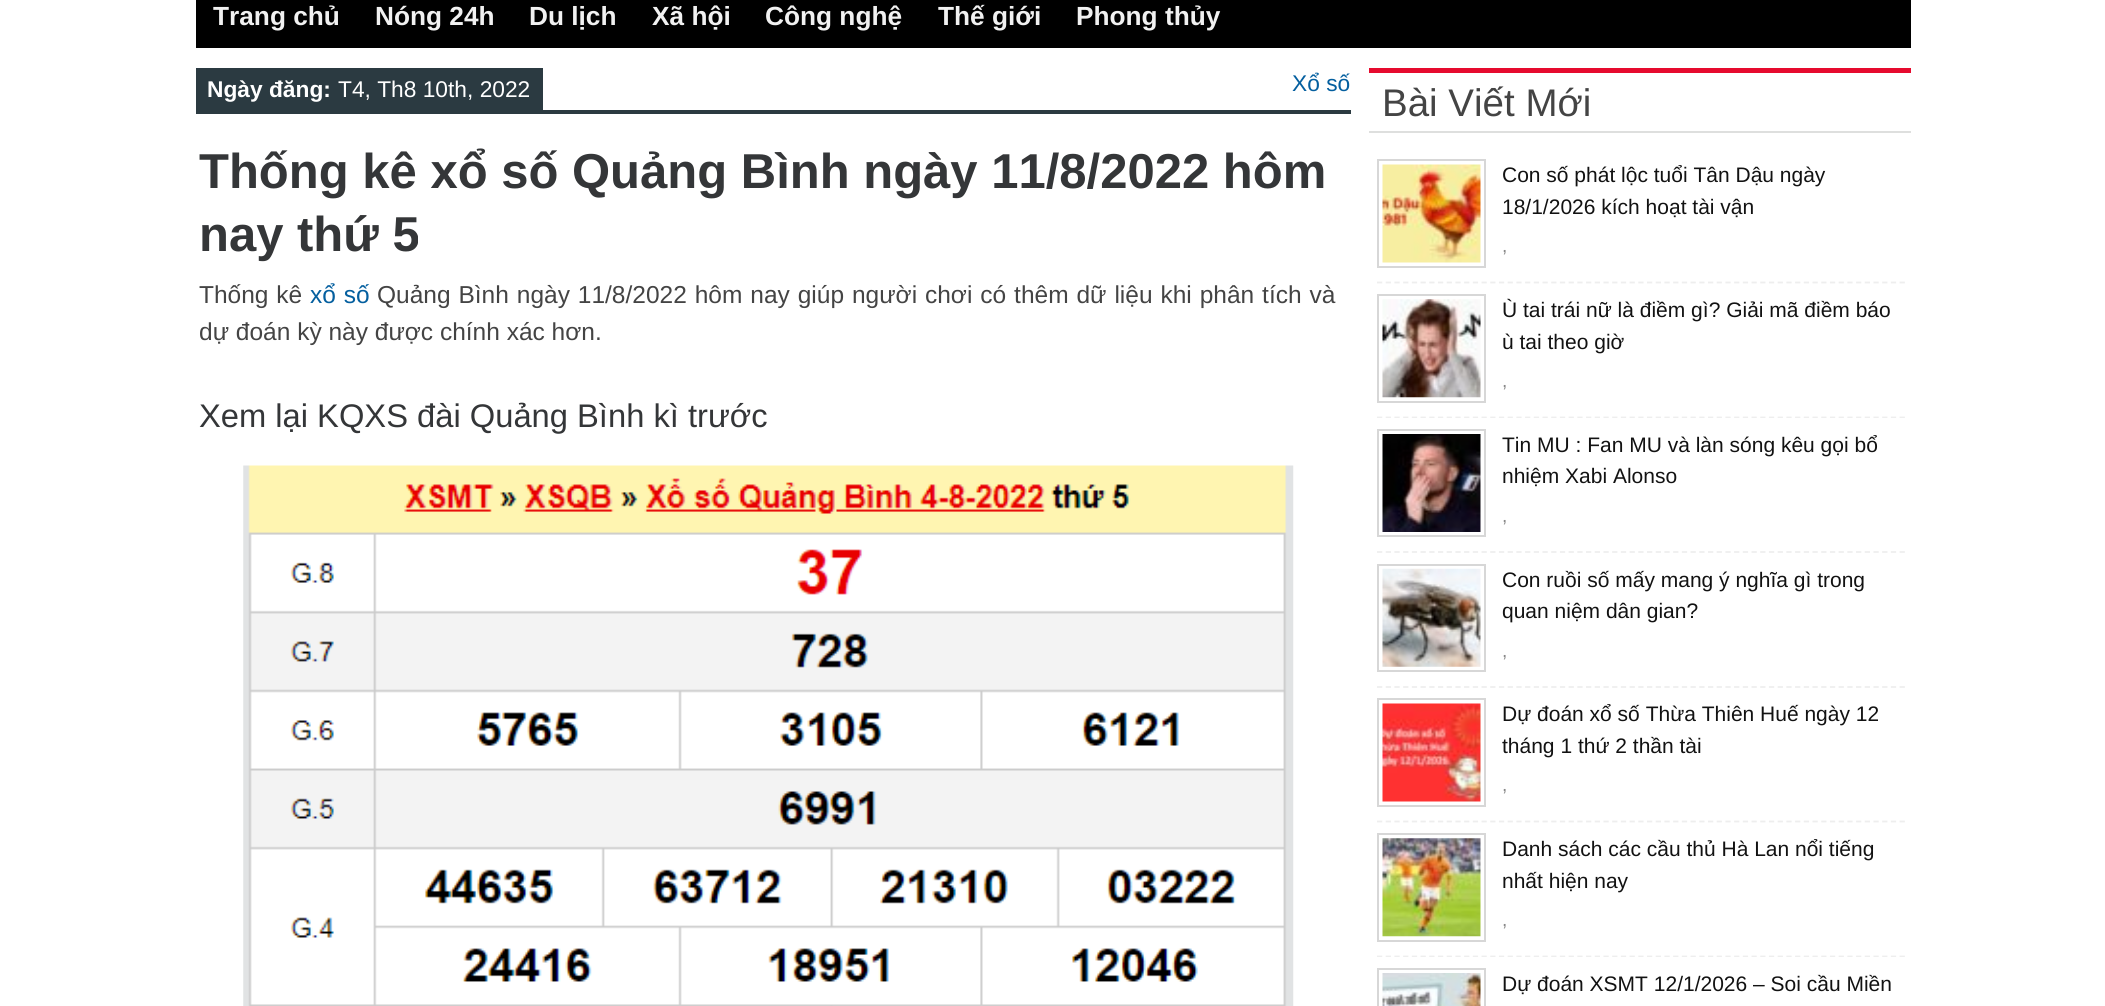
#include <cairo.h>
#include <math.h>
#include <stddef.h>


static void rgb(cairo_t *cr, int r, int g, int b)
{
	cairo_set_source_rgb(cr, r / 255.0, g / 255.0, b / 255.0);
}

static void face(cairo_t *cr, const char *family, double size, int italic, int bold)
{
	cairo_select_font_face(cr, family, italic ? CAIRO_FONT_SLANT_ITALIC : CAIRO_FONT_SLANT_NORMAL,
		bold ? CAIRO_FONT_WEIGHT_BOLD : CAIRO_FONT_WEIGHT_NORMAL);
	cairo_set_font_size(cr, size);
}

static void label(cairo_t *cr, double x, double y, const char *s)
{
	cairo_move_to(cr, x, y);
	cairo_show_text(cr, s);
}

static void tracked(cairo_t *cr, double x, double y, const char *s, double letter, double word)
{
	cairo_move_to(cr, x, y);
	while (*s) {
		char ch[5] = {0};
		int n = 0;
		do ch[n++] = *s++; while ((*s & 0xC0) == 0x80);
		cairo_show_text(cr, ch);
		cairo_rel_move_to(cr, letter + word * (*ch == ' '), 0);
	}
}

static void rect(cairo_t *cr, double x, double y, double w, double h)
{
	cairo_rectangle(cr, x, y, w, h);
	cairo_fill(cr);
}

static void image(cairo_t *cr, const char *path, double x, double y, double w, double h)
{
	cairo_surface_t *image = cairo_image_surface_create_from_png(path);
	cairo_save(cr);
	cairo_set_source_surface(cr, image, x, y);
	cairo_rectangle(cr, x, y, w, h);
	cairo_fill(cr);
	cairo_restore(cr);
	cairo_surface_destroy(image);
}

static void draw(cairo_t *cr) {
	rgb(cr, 255, 255, 255);
	cairo_paint(cr);
	rgb(cr, 0, 0, 0);
	rect(cr, 196, 0, 1715, 48);
	face(cr, "Liberation Sans", 26.25, 0, 1);
	rgb(cr, 241, 241, 241);
	label(cr, 213, 25, "Trang chủ");
	label(cr, 375, 25, "Nóng 24h");
	label(cr, 529, 25, "Du lịch");
	label(cr, 652, 25, "Xã hội");
	label(cr, 765, 25, "Công nghệ");
	label(cr, 938, 25, "Thế giới");
	label(cr, 1076, 25, "Phong thủy");
	rgb(cr, 43, 58, 65);
	rect(cr, 196, 110, 1155, 4);
	rect(cr, 196, 68, 347, 42);
	face(cr, "Liberation Sans", 22.75, 0, 1);
	rgb(cr, 255, 255, 255);
	label(cr, 207, 97, "Ngày đăng:");
	face(cr, "Liberation Sans", 22.75, 0, 0);
	label(cr, 338, 97, "T4, Th8 10th, 2022");
	rgb(cr, 4, 95, 159);
	label(cr, 1292, 91, "Xổ số");
	face(cr, "Liberation Sans", 49, 0, 1);
	rgb(cr, 52, 54, 56);
	label(cr, 199, 188, "Thống kê xổ số Quảng Bình ngày 11/8/2022 hôm");
	label(cr, 199, 251, "nay thứ 5");
	face(cr, "Liberation Sans", 24.5, 0, 0);
	rgb(cr, 68, 68, 68);
	tracked(cr, 199, 303, "Thống kê", 0, 1);
	rgb(cr, 4, 95, 159);
	tracked(cr, 310, 303, "xổ số", 0, 1);
	rgb(cr, 68, 68, 68);
	tracked(cr, 377, 303, "Quảng Bình ngày 11/8/2022 hôm nay giúp người chơi có thêm dữ liệu khi phân tích và", 0, 1.1);
	label(cr, 199, 340, "dự đoán kỳ này được chính xác hơn.");
	face(cr, "Liberation Sans", 32.7, 0, 0);
	rgb(cr, 52, 54, 56);
	label(cr, 199, 427, "Xem lại KQXS đài Quảng Bình kì trước");
	image(cr, "image0.png", 243, 465, 1051, 541);
	rgb(cr, 230, 10, 46);
	rect(cr, 1369, 68, 542, 5);
	rgb(cr, 222, 223, 222);
	rect(cr, 1369, 131, 542, 2);
	face(cr, "Liberation Sans", 38.5, 0, 0);
	rgb(cr, 68, 68, 68);
	label(cr, 1382, 116, "Bài Viết Mới");
	cairo_new_path(cr);
	cairo_move_to(cr, 1377, 282.5);
	cairo_line_to(cr, 1906, 282.5);
	rgb(cr, 238, 238, 238);
	cairo_set_line_width(cr, 1.8);
	cairo_set_dash(cr, (double[]){5.25, 3.46}, 2, 0);
	cairo_stroke(cr);
	cairo_rectangle(cr, 1378, 160, 107, 107);
	rgb(cr, 215, 215, 215);
	cairo_set_line_width(cr, 2);
	cairo_set_dash(cr, NULL, 0, 0);
	cairo_stroke(cr);
	image(cr, "image1.png", 1382, 164, 99, 99);
	face(cr, "Liberation Sans", 21, 0, 0);
	rgb(cr, 18, 18, 18);
	label(cr, 1502, 182, "Con số phát lộc tuổi Tân Dậu ngày");
	label(cr, 1502, 214, "18/1/2026 kích hoạt tài vận");
	face(cr, "Liberation Sans", 19, 0, 0);
	rgb(cr, 136, 136, 136);
	label(cr, 1502, 252, ",");
	cairo_new_path(cr);
	cairo_move_to(cr, 1377, 417.5);
	cairo_line_to(cr, 1906, 417.5);
	rgb(cr, 238, 238, 238);
	cairo_set_line_width(cr, 1.8);
	cairo_set_dash(cr, (double[]){5.25, 3.46}, 2, 0);
	cairo_stroke(cr);
	cairo_rectangle(cr, 1378, 295, 107, 107);
	rgb(cr, 215, 215, 215);
	cairo_set_line_width(cr, 2);
	cairo_set_dash(cr, NULL, 0, 0);
	cairo_stroke(cr);
	image(cr, "image2.png", 1382, 299, 99, 99);
	face(cr, "Liberation Sans", 21, 0, 0);
	rgb(cr, 18, 18, 18);
	label(cr, 1502, 317, "Ù tai trái nữ là điềm gì? Giải mã điềm báo");
	label(cr, 1502, 349, "ù tai theo giờ");
	face(cr, "Liberation Sans", 19, 0, 0);
	rgb(cr, 136, 136, 136);
	label(cr, 1502, 387, ",");
	rgb(cr, 255, 255, 255);
	rect(cr, 1377, 418, 528, 1);
	cairo_new_path(cr);
	cairo_move_to(cr, 1377, 552);
	cairo_line_to(cr, 1906, 552);
	rgb(cr, 238, 238, 238);
	cairo_set_line_width(cr, 1.8);
	cairo_set_dash(cr, (double[]){5.25, 3.46}, 2, 0);
	cairo_stroke(cr);
	cairo_rectangle(cr, 1378, 430, 107, 106);
	rgb(cr, 215, 215, 215);
	cairo_set_line_width(cr, 2);
	cairo_set_dash(cr, NULL, 0, 0);
	cairo_stroke(cr);
	image(cr, "image3.png", 1382, 434, 99, 98);
	face(cr, "Liberation Sans", 21, 0, 0);
	rgb(cr, 18, 18, 18);
	label(cr, 1502, 452, "Tin MU : Fan MU và làn sóng kêu gọi bổ");
	label(cr, 1502, 483, "nhiệm Xabi Alonso");
	face(cr, "Liberation Sans", 19, 0, 0);
	rgb(cr, 136, 136, 136);
	label(cr, 1502, 522, ",");
	cairo_new_path(cr);
	cairo_move_to(cr, 1377, 687);
	cairo_line_to(cr, 1906, 687);
	rgb(cr, 238, 238, 238);
	cairo_set_line_width(cr, 1.8);
	cairo_set_dash(cr, (double[]){5.25, 3.46}, 2, 0);
	cairo_stroke(cr);
	cairo_rectangle(cr, 1378, 565, 107, 106);
	rgb(cr, 215, 215, 215);
	cairo_set_line_width(cr, 2);
	cairo_set_dash(cr, NULL, 0, 0);
	cairo_stroke(cr);
	image(cr, "image4.png", 1382, 568, 99, 99);
	face(cr, "Liberation Sans", 21, 0, 0);
	rgb(cr, 18, 18, 18);
	label(cr, 1502, 587, "Con ruồi số mấy mang ý nghĩa gì trong");
	label(cr, 1502, 618, "quan niệm dân gian?");
	face(cr, "Liberation Sans", 19, 0, 0);
	rgb(cr, 136, 136, 136);
	label(cr, 1502, 657, ",");
	cairo_new_path(cr);
	cairo_move_to(cr, 1377, 821.5);
	cairo_line_to(cr, 1906, 821.5);
	rgb(cr, 238, 238, 238);
	cairo_set_line_width(cr, 1.8);
	cairo_set_dash(cr, (double[]){5.25, 3.46}, 2, 0);
	cairo_stroke(cr);
	cairo_rectangle(cr, 1378, 699, 107, 107);
	rgb(cr, 215, 215, 215);
	cairo_set_line_width(cr, 2);
	cairo_set_dash(cr, NULL, 0, 0);
	cairo_stroke(cr);
	image(cr, "image5.png", 1382, 703, 99, 99);
	face(cr, "Liberation Sans", 21, 0, 0);
	rgb(cr, 18, 18, 18);
	label(cr, 1502, 721, "Dự đoán xổ số Thừa Thiên Huế ngày 12");
	label(cr, 1502, 753, "tháng 1 thứ 2 thần tài");
	face(cr, "Liberation Sans", 19, 0, 0);
	rgb(cr, 136, 136, 136);
	label(cr, 1502, 791, ",");
	cairo_new_path(cr);
	cairo_move_to(cr, 1377, 956.5);
	cairo_line_to(cr, 1906, 956.5);
	rgb(cr, 238, 238, 238);
	cairo_set_line_width(cr, 1.8);
	cairo_set_dash(cr, (double[]){5.25, 3.46}, 2, 0);
	cairo_stroke(cr);
	cairo_rectangle(cr, 1378, 834, 107, 107);
	rgb(cr, 215, 215, 215);
	cairo_set_line_width(cr, 2);
	cairo_set_dash(cr, NULL, 0, 0);
	cairo_stroke(cr);
	image(cr, "image6.png", 1382, 838, 99, 99);
	face(cr, "Liberation Sans", 21, 0, 0);
	rgb(cr, 18, 18, 18);
	label(cr, 1502, 856, "Danh sách các cầu thủ Hà Lan nổi tiếng");
	label(cr, 1502, 888, "nhất hiện nay");
	face(cr, "Liberation Sans", 19, 0, 0);
	rgb(cr, 136, 136, 136);
	label(cr, 1502, 926, ",");
	rgb(cr, 255, 255, 255);
	rect(cr, 1377, 957, 528, 1);
	cairo_rectangle(cr, 1378, 969, 107, 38);
	rgb(cr, 215, 215, 215);
	cairo_stroke(cr);
	image(cr, "image7.png", 1382, 973, 99, 33);
	face(cr, "Liberation Sans", 21, 0, 0);
	rgb(cr, 18, 18, 18);
	label(cr, 1502, 991, "Dự đoán XSMT 12/1/2026 – Soi cầu Miền");
}

int main(void) {
	cairo_surface_t *surface = cairo_image_surface_create(CAIRO_FORMAT_RGB24, 2105, 1006);
	cairo_t *cr = cairo_create(surface);
	cairo_font_options_t *options = cairo_font_options_create();
	cairo_font_options_set_hint_metrics(options, CAIRO_HINT_METRICS_OFF);
	cairo_font_options_set_hint_style(options, CAIRO_HINT_STYLE_NONE);
	cairo_set_font_options(cr, options);
	cairo_set_miter_limit(cr, 4);
	draw(cr);
	cairo_surface_write_to_png(surface, "render.png");
	cairo_font_options_destroy(options);
	cairo_destroy(cr);
	cairo_surface_destroy(surface);
	return 0;
}
